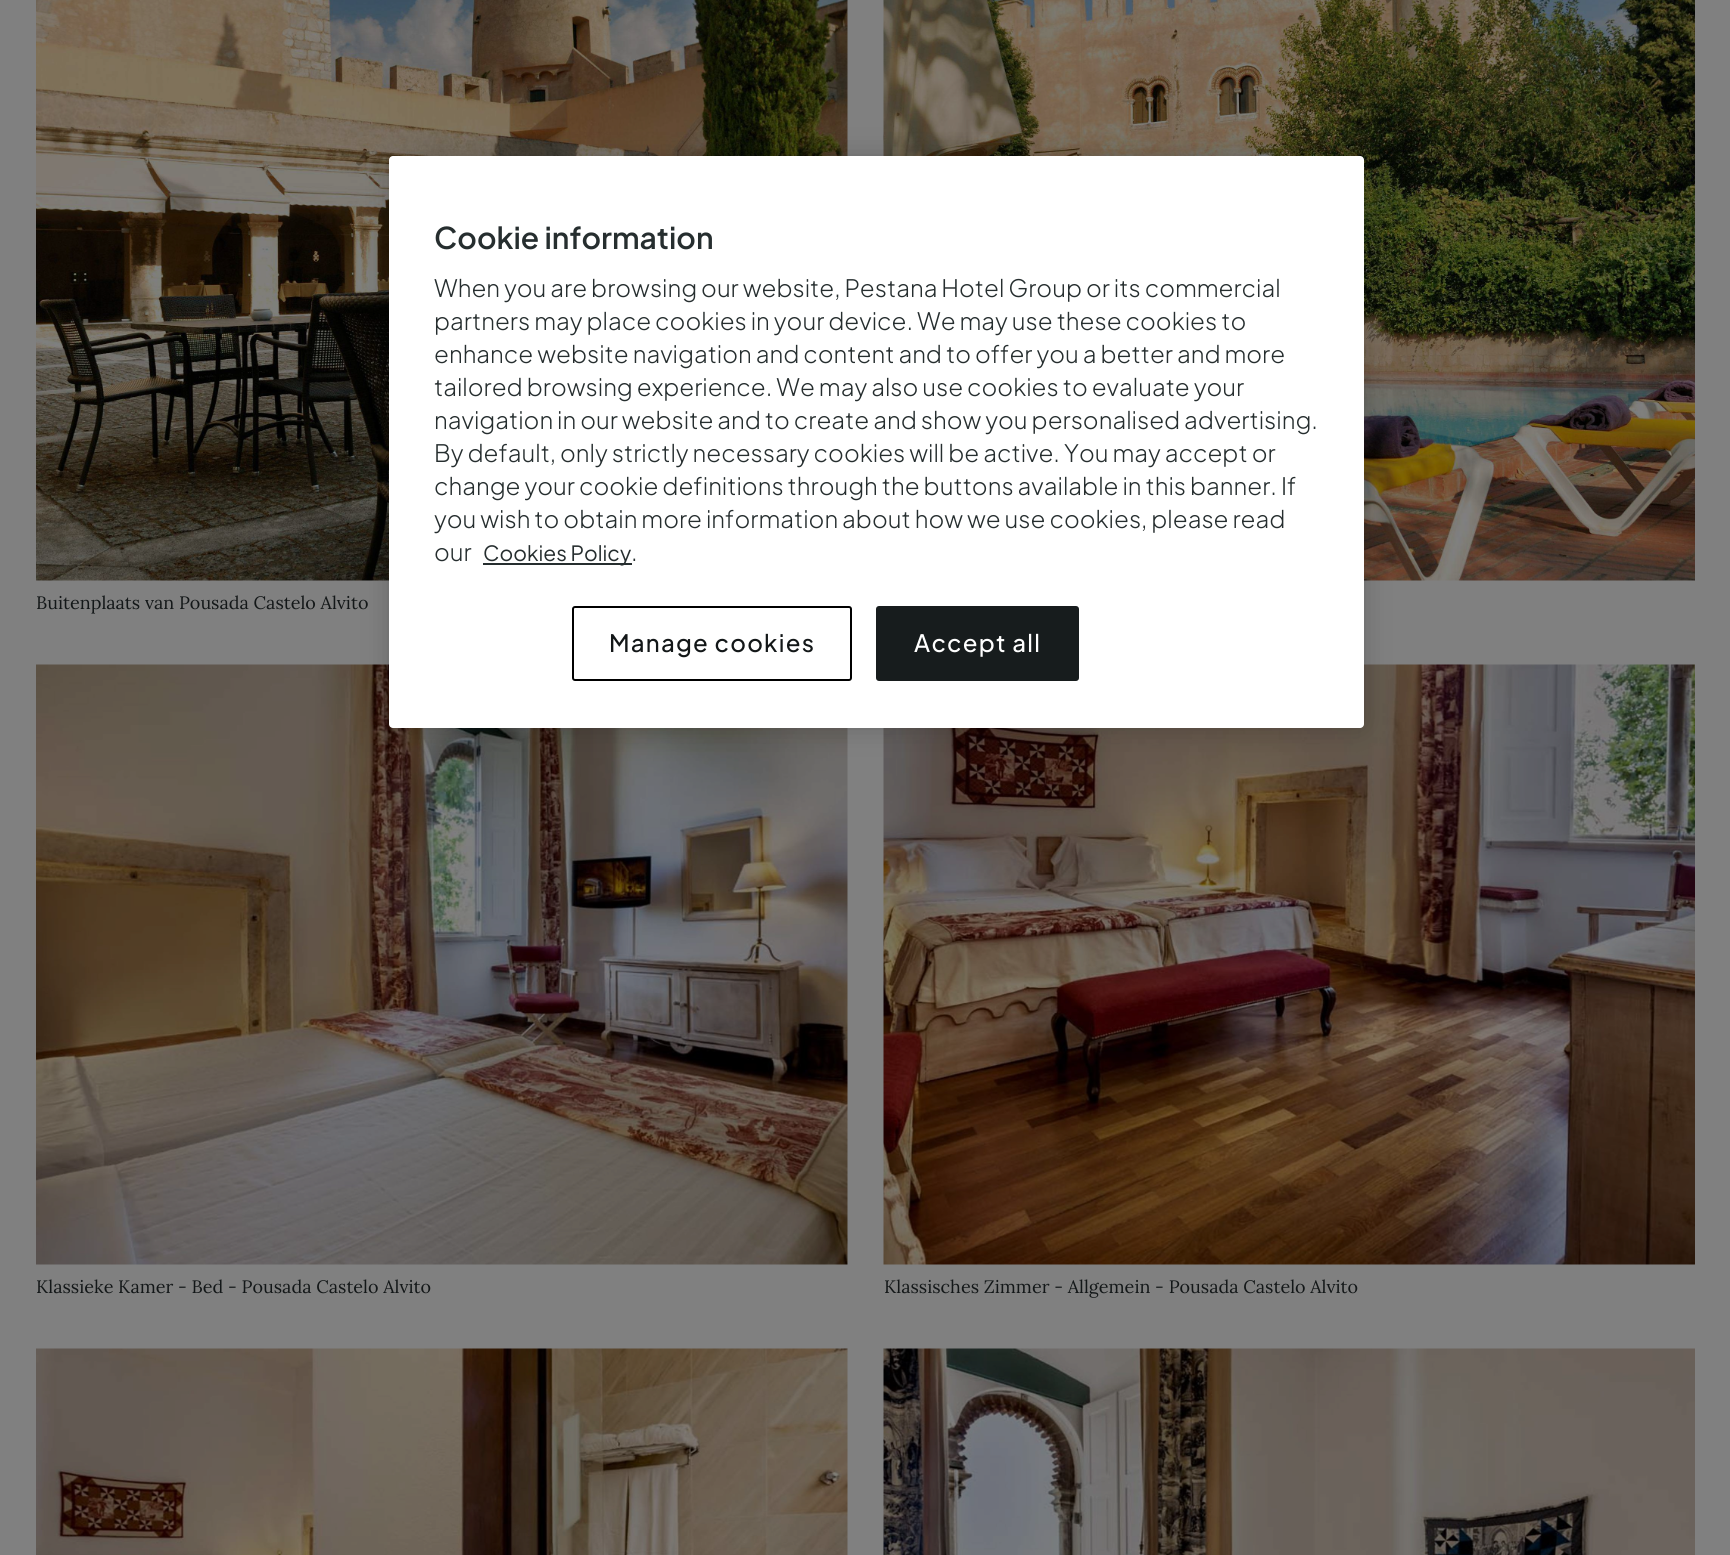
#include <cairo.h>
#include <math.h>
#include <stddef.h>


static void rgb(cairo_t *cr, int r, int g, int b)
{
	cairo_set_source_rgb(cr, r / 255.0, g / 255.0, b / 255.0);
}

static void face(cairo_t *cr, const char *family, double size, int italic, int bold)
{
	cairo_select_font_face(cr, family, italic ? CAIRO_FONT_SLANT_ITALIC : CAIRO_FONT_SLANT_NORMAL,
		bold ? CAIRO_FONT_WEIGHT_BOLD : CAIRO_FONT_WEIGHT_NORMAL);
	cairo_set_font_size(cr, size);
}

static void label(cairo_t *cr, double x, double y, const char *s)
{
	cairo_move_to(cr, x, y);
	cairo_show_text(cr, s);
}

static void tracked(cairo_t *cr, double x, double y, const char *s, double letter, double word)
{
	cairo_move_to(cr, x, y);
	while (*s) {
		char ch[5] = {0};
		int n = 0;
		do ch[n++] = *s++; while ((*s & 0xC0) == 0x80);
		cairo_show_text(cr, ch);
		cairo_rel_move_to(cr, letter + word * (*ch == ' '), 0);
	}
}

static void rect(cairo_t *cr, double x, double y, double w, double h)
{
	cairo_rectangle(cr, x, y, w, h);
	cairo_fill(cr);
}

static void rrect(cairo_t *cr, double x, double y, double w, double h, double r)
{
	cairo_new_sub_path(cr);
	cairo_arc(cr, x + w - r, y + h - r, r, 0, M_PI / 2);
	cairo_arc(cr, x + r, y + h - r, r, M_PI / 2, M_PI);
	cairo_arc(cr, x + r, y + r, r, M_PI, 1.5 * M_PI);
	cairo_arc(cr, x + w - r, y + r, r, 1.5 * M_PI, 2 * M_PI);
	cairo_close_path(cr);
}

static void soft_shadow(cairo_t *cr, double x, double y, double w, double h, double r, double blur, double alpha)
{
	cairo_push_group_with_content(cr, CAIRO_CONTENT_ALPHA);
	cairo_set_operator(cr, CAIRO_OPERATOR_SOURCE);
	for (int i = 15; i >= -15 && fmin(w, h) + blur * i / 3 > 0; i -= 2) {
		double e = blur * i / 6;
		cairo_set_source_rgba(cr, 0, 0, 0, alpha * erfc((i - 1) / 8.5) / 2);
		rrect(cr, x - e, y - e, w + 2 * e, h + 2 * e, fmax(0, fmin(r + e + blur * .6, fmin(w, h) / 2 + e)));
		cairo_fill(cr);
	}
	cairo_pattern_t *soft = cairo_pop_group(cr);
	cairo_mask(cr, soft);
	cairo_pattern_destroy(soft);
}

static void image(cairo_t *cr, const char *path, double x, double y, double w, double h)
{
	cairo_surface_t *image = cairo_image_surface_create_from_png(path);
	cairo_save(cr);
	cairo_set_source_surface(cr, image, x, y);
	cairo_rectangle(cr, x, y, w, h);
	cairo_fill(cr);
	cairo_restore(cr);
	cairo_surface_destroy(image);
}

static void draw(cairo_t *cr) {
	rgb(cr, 128, 128, 128);
	cairo_paint(cr);
	image(cr, "image0.png", 883, 0, 812, 581);
	image(cr, "image1.png", 36, 0, 812, 581);
	image(cr, "image2.png", 36, 664, 812, 601);
	image(cr, "image3.png", 883, 664, 812, 601);
	rgb(cr, 0, 0, 0);
	soft_shadow(cr, 389, 156, 975, 572, 4, 13.5, 0.2);
	rgb(cr, 255, 255, 255);
	rrect(cr, 389, 156, 975, 572, 4);
	cairo_fill(cr);
	face(cr, "Plus Jakarta Sans SemiBold", 30, 0, 0);
	rgb(cr, 38, 46, 47);
	label(cr, 434, 249, "Cookie information");
	face(cr, "Plus Jakarta Sans Light", 24, 0, 0);
	label(cr, 434, 297, "When you are browsing our website, Pestana Hotel Group or its commercial");
	label(cr, 434, 330, "partners may place cookies in your device. We may use these cookies to");
	label(cr, 434, 363, "enhance website navigation and content and to offer you a better and more");
	label(cr, 434, 396, "tailored browsing experience. We may also use cookies to evaluate your");
	label(cr, 434, 429, "navigation in our website and to create and show you personalised advertising.");
	label(cr, 434, 462, "By default, only strictly necessary cookies will be active. You may accept or");
	label(cr, 434, 495, "change your cookie definitions through the buttons available in this banner. If");
	label(cr, 434, 528, "you wish to obtain more information about how we use cookies, please read");
	label(cr, 434, 561, "our");
	rect(cr, 483, 563, 149, 2);
	face(cr, "Plus Jakarta Sans", 21, 0, 0);
	label(cr, 483, 561, "Cookies Policy");
	face(cr, "Plus Jakarta Sans Light", 24, 0, 0);
	label(cr, 631, 561, ".");
	rrect(cr, 573, 607, 278, 73, 2);
	rgb(cr, 0, 0, 0);
	cairo_stroke(cr);
	face(cr, "Plus Jakarta Sans Medium", 24, 0, 0);
	rgb(cr, 19, 23, 24);
	tracked(cr, 609, 652, "Manage cookies", 1.25, 0);
	rgb(cr, 23, 28, 29);
	rrect(cr, 877, 607, 201, 73, 2);
	cairo_fill_preserve(cr);
	cairo_stroke(cr);
	rgb(cr, 255, 255, 255);
	tracked(cr, 914, 652, "Accept all", 1.25, 0);
	face(cr, "Lora", 18, 0, 0);
	rgb(cr, 19, 23, 24);
	label(cr, 36, 609, "Buitenplaats van Pousada Castelo Alvito");
	label(cr, 36, 1293, "Klassieke Kamer - Bed - Pousada Castelo Alvito");
	label(cr, 884, 1293, "Klassisches Zimmer - Allgemein - Pousada Castelo Alvito");
	image(cr, "image4.png", 36, 1348, 812, 207);
	image(cr, "image5.png", 883, 1348, 812, 207);
}

int main(void) {
	cairo_surface_t *surface = cairo_image_surface_create(CAIRO_FORMAT_RGB24, 1730, 1555);
	cairo_t *cr = cairo_create(surface);
	cairo_font_options_t *options = cairo_font_options_create();
	cairo_font_options_set_hint_metrics(options, CAIRO_HINT_METRICS_OFF);
	cairo_font_options_set_hint_style(options, CAIRO_HINT_STYLE_NONE);
	cairo_set_font_options(cr, options);
	cairo_set_miter_limit(cr, 4);
	draw(cr);
	cairo_surface_write_to_png(surface, "render.png");
	cairo_font_options_destroy(options);
	cairo_destroy(cr);
	cairo_surface_destroy(surface);
	return 0;
}
